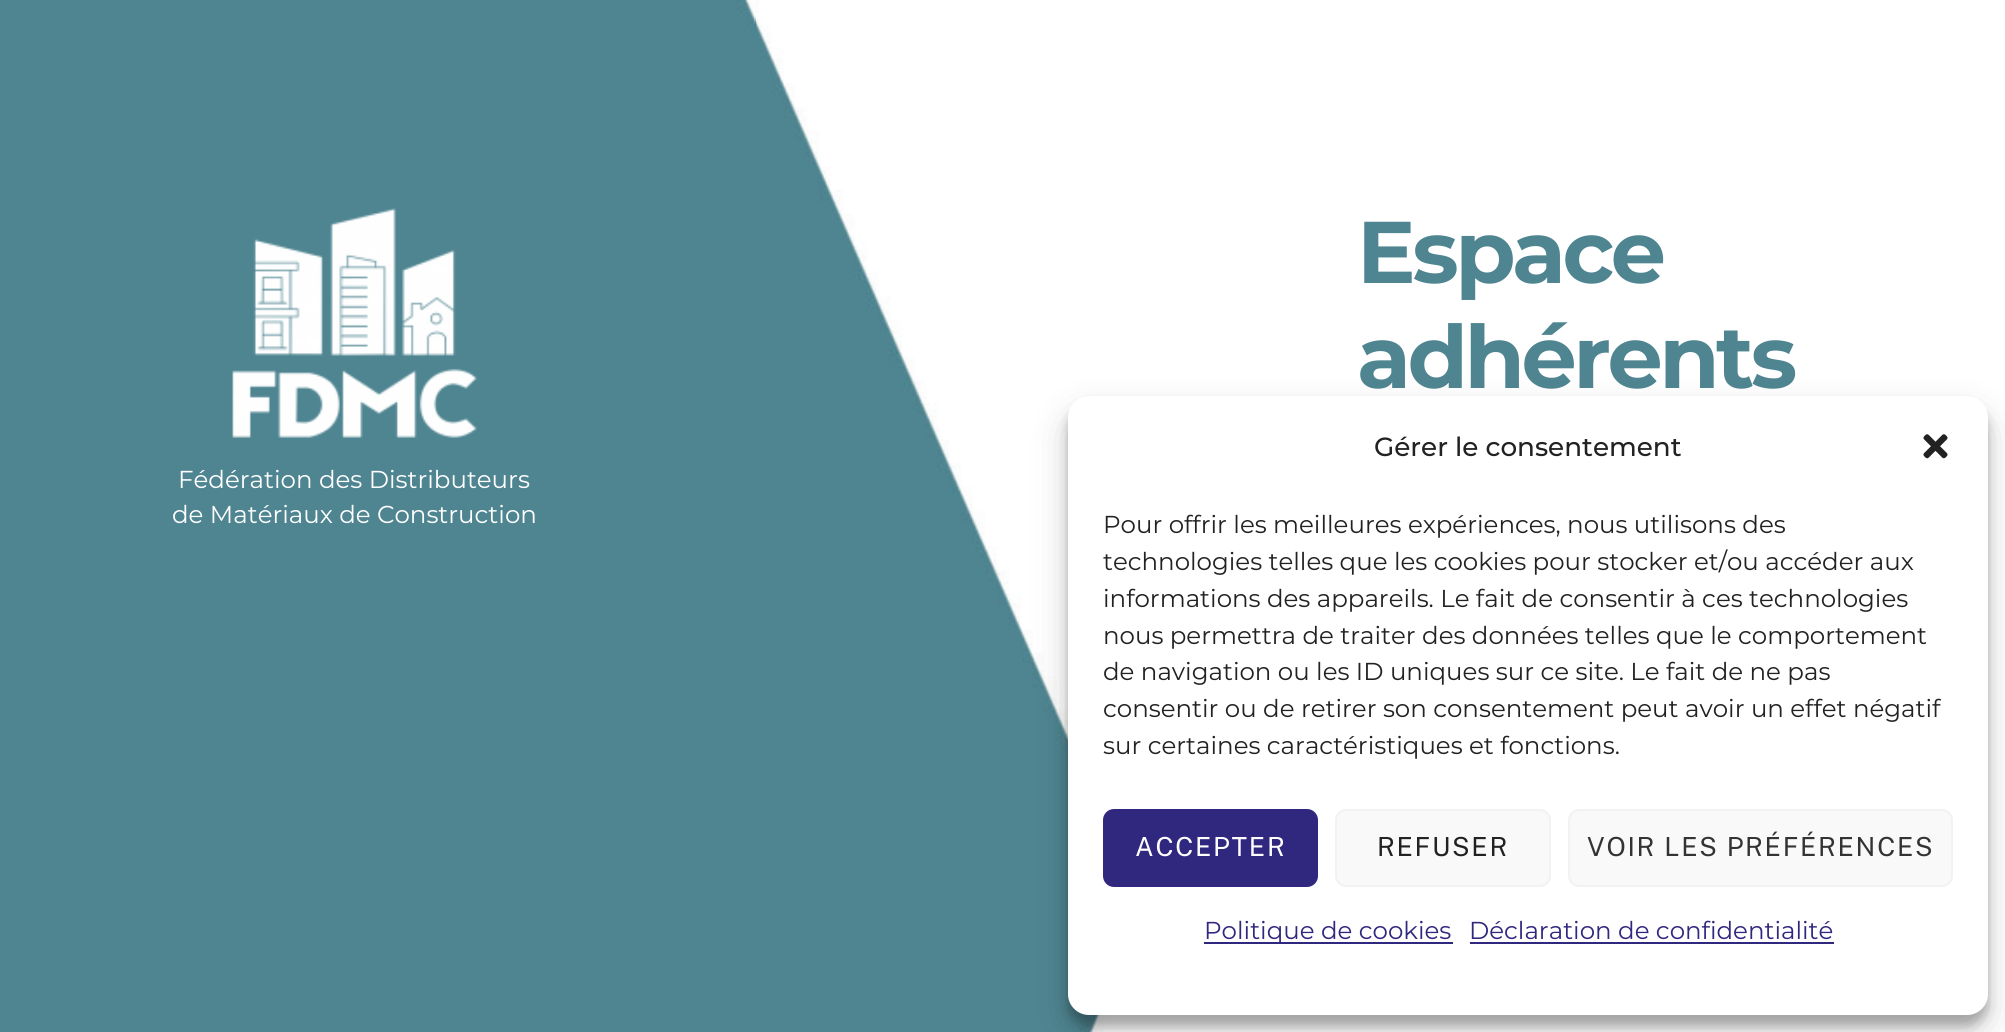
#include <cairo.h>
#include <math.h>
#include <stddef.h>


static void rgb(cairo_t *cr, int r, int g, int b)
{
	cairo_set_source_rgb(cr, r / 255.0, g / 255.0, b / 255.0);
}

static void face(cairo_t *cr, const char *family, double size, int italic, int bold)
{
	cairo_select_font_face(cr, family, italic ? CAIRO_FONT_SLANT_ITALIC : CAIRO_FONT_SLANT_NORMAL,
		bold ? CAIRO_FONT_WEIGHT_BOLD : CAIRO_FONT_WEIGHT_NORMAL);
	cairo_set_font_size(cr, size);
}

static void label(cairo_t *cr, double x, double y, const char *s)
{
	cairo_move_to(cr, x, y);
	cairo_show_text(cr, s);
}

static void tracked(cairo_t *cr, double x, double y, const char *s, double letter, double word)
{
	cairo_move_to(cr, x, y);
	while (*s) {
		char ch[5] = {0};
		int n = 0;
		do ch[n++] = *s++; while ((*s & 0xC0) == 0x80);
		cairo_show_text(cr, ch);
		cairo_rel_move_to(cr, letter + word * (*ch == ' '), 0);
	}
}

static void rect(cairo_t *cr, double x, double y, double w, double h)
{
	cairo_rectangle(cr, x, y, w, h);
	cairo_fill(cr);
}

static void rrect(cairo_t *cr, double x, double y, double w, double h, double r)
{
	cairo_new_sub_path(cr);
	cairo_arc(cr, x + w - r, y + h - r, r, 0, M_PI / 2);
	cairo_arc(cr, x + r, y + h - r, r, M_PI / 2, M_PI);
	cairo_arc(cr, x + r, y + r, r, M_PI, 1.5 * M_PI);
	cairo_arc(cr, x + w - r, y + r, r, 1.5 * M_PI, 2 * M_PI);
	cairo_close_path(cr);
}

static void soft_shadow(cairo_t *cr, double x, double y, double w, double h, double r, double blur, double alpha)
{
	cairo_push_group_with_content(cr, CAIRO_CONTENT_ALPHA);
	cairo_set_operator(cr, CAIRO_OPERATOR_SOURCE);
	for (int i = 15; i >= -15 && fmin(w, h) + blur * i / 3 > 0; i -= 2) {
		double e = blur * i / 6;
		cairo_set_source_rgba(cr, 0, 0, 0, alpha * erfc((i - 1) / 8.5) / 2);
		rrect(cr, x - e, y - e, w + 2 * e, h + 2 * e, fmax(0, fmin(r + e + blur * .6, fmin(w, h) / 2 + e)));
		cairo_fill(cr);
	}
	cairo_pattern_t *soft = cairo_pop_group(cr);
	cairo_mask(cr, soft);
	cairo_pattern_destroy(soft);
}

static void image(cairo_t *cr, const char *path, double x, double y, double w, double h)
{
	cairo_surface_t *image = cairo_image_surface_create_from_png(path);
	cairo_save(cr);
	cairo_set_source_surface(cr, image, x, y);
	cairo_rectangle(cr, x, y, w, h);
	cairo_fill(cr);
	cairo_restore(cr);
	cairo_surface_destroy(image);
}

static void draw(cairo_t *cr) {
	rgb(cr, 255, 255, 255);
	cairo_paint(cr);
	image(cr, "image0.png", 0, 0, 1151, 1032);
	face(cr, "Montserrat", 87.5, 0, 1);
	rgb(cr, 79, 133, 145);
	tracked(cr, 1357, 283, "Espace", -3.5, 0);
	tracked(cr, 1357, 388, "adhérents", -3.5, 0);
	image(cr, "image1.png", 232, 208, 245, 230);
	face(cr, "Montserrat", 24.5, 0, 0);
	rgb(cr, 255, 255, 255);
	label(cr, 178, 488, "Fédération des Distributeurs");
	label(cr, 172, 523, "de Matériaux de Construction");
	rgb(cr, 0, 0, 0);
	soft_shadow(cr, 1068, 406, 920, 620, 21, 5, 0.23);
	soft_shadow(cr, 1068, 413, 920, 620, 21, 17.5, 0.19);
	rgb(cr, 255, 255, 255);
	rrect(cr, 1068, 396, 920, 619, 21);
	cairo_fill(cr);
	face(cr, "Montserrat Medium", 26.25, 0, 0);
	rgb(cr, 34, 34, 34);
	label(cr, 1374, 456, "Gérer le consentement");
	image(cr, "image2.png", 1923, 434, 25, 25);
	face(cr, "Montserrat", 24.5, 0, 0);
	label(cr, 1103, 533, "Pour offrir les meilleures expériences, nous utilisons des");
	label(cr, 1103, 570, "technologies telles que les cookies pour stocker et/ou accéder aux");
	label(cr, 1103, 607, "informations des appareils. Le fait de consentir à ces technologies");
	label(cr, 1103, 644, "nous permettra de traiter des données telles que le comportement");
	label(cr, 1103, 680, "de navigation ou les ID uniques sur ce site. Le fait de ne pas");
	label(cr, 1103, 717, "consentir ou de retirer son consentement peut avoir un effet négatif");
	label(cr, 1103, 754, "sur certaines caractéristiques et fonctions.");
	rgb(cr, 48, 39, 126);
	rrect(cr, 1104, 810, 213, 76, 10);
	cairo_fill_preserve(cr);
	cairo_stroke(cr);
	face(cr, "Public Sans", 26.25, 0, 0);
	rgb(cr, 255, 255, 255);
	tracked(cr, 1135, 856, "ACCEPTER", 1.75, 0);
	rgb(cr, 249, 249, 249);
	rrect(cr, 1336, 810, 214, 76, 10);
	cairo_fill_preserve(cr);
	rgb(cr, 242, 242, 242);
	cairo_stroke(cr);
	rgb(cr, 34, 34, 34);
	tracked(cr, 1377, 856, "REFUSER", 1.75, 0);
	rgb(cr, 249, 249, 249);
	rrect(cr, 1569, 810, 383, 76, 10);
	cairo_fill_preserve(cr);
	rgb(cr, 242, 242, 242);
	cairo_stroke(cr);
	rgb(cr, 51, 51, 51);
	tracked(cr, 1587, 856, "VOIR LES PRÉFÉRENCES", 1.75, 0);
	rgb(cr, 48, 39, 126);
	rect(cr, 1204, 942, 249, 2);
	face(cr, "Montserrat", 24.5, 0, 0);
	label(cr, 1204, 939, "Politique de cookies");
	label(cr, 1469, 939, "Déclaration de confidentialité");
	rect(cr, 1470, 942, 364, 2);
}

int main(void) {
	cairo_surface_t *surface = cairo_image_surface_create(CAIRO_FORMAT_RGB24, 2005, 1032);
	cairo_t *cr = cairo_create(surface);
	cairo_font_options_t *options = cairo_font_options_create();
	cairo_font_options_set_hint_metrics(options, CAIRO_HINT_METRICS_OFF);
	cairo_font_options_set_hint_style(options, CAIRO_HINT_STYLE_NONE);
	cairo_set_font_options(cr, options);
	cairo_set_miter_limit(cr, 4);
	draw(cr);
	cairo_surface_write_to_png(surface, "render.png");
	cairo_font_options_destroy(options);
	cairo_destroy(cr);
	cairo_surface_destroy(surface);
	return 0;
}
